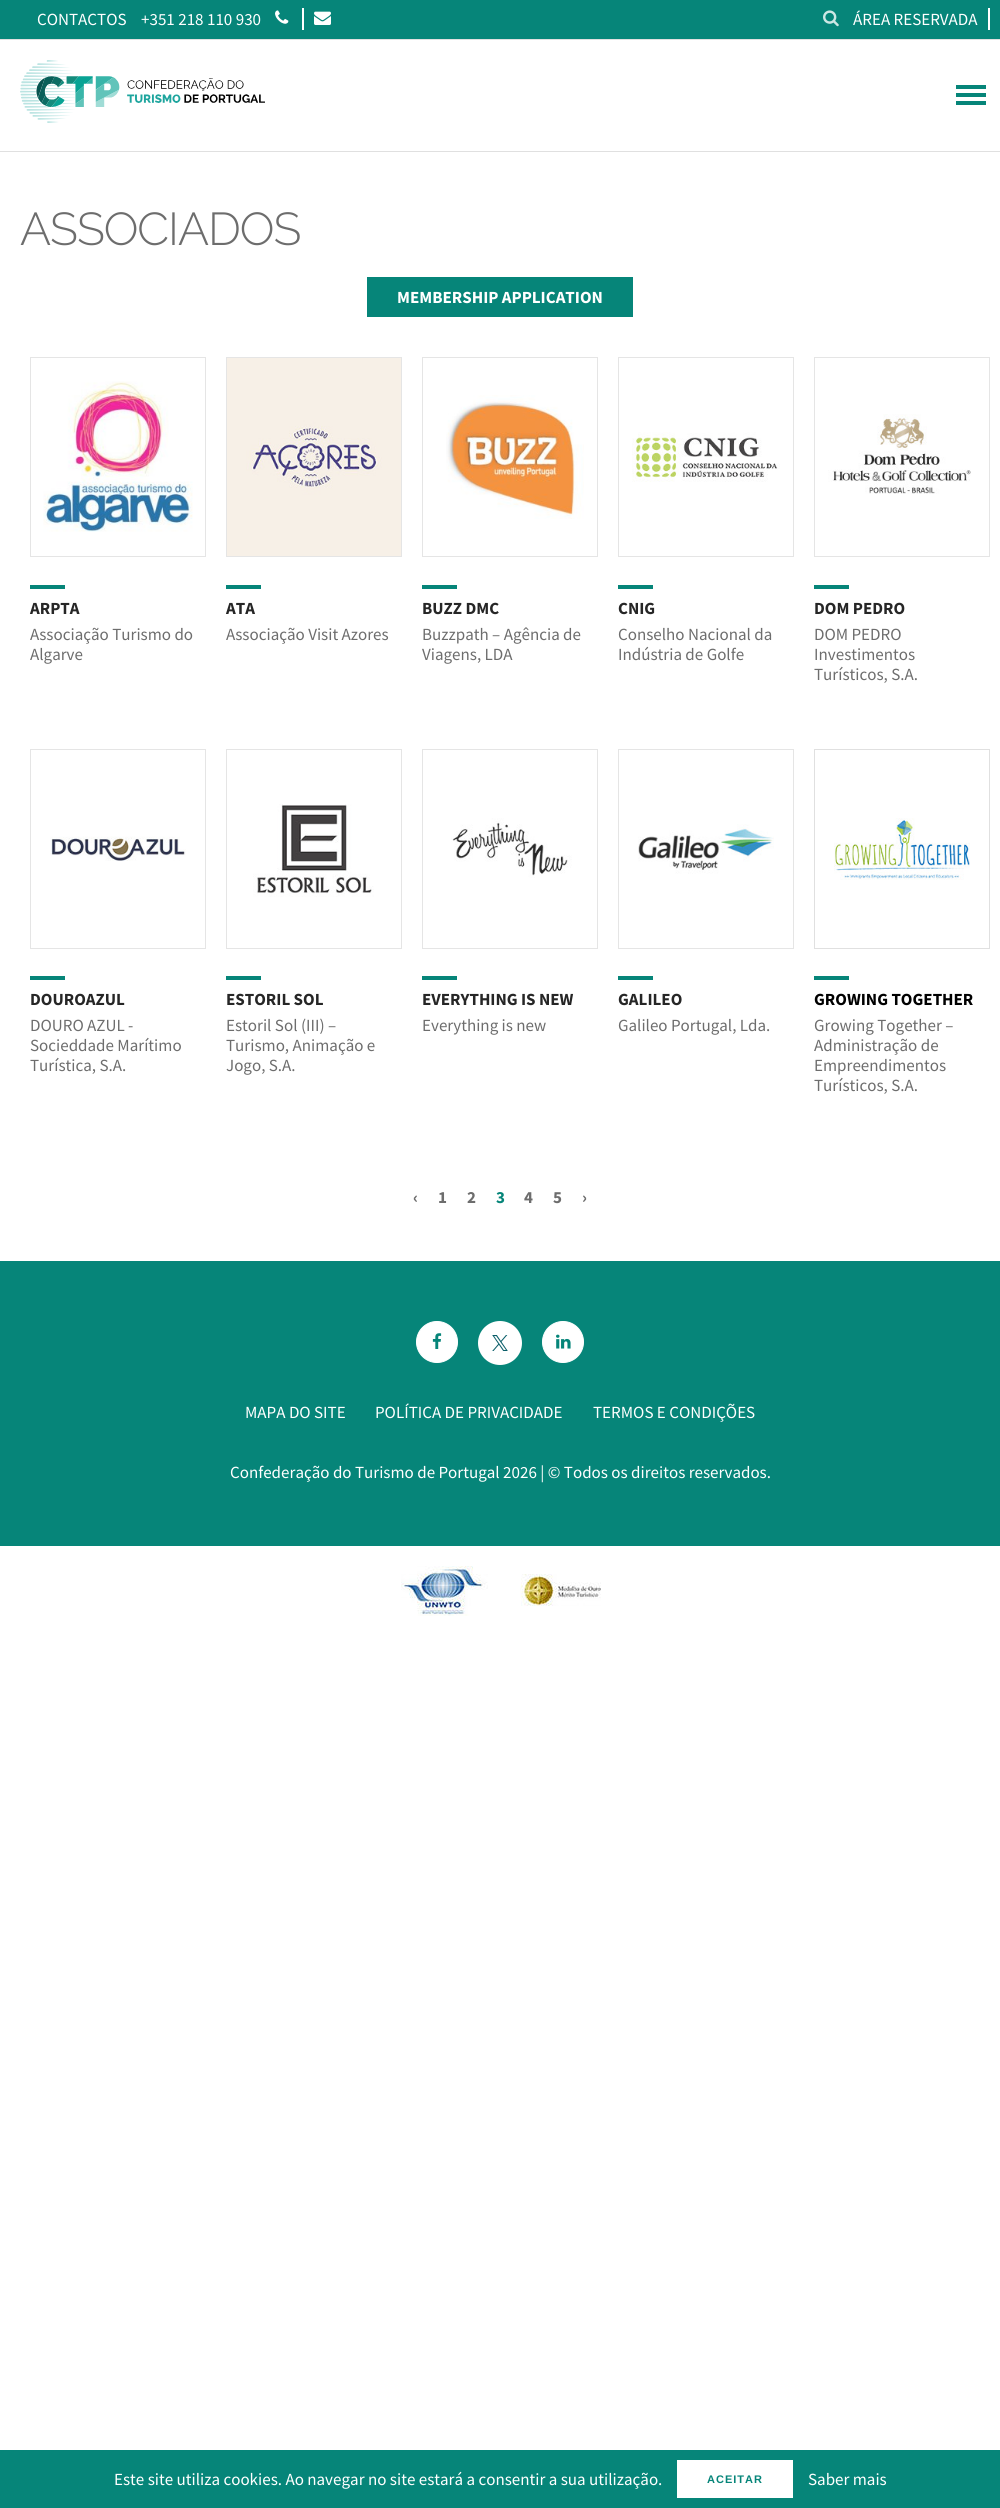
#include <cairo.h>
#include <math.h>
#include <stddef.h>


static void rgb(cairo_t *cr, int r, int g, int b)
{
	cairo_set_source_rgb(cr, r / 255.0, g / 255.0, b / 255.0);
}

static void face(cairo_t *cr, const char *family, double size, int italic, int bold)
{
	cairo_select_font_face(cr, family, italic ? CAIRO_FONT_SLANT_ITALIC : CAIRO_FONT_SLANT_NORMAL,
		bold ? CAIRO_FONT_WEIGHT_BOLD : CAIRO_FONT_WEIGHT_NORMAL);
	cairo_set_font_size(cr, size);
}

static void label(cairo_t *cr, double x, double y, const char *s)
{
	cairo_move_to(cr, x, y);
	cairo_show_text(cr, s);
}

static void tracked(cairo_t *cr, double x, double y, const char *s, double letter, double word)
{
	cairo_move_to(cr, x, y);
	while (*s) {
		char ch[5] = {0};
		int n = 0;
		do ch[n++] = *s++; while ((*s & 0xC0) == 0x80);
		cairo_show_text(cr, ch);
		cairo_rel_move_to(cr, letter + word * (*ch == ' '), 0);
	}
}

static void rect(cairo_t *cr, double x, double y, double w, double h)
{
	cairo_rectangle(cr, x, y, w, h);
	cairo_fill(cr);
}

static void image(cairo_t *cr, const char *path, double x, double y, double w, double h)
{
	cairo_surface_t *image = cairo_image_surface_create_from_png(path);
	cairo_save(cr);
	cairo_set_source_surface(cr, image, x, y);
	cairo_rectangle(cr, x, y, w, h);
	cairo_fill(cr);
	cairo_restore(cr);
	cairo_surface_destroy(image);
}

static void draw(cairo_t *cr) {
	rgb(cr, 255, 255, 255);
	cairo_paint(cr);
	rgb(cr, 6, 133, 121);
	rect(cr, 0, 0, 1000, 39);
	rgb(cr, 224, 224, 224);
	rect(cr, 0, 39, 1000, 1);
	face(cr, "Source Sans Pro", 17, 0, 0);
	rgb(cr, 255, 255, 255);
	label(cr, 37, 25, "CONTACTOS");
	label(cr, 141, 25, "+351 218 110 930");
	image(cr, "image0.png", 275, 10, 14, 14);
	rect(cr, 302, 8, 2, 22);
	image(cr, "image1.png", 314, 11, 17, 14);
	image(cr, "image2.png", 823, 10, 16, 17);
	label(cr, 853, 25, "ÁREA RESERVADA");
	rect(cr, 988, 8, 2, 22);
	rgb(cr, 224, 224, 224);
	rect(cr, 0, 151, 1000, 1);
	image(cr, "image3.png", 20, 60, 245, 63);
	rgb(cr, 6, 133, 121);
	rect(cr, 956, 85, 30, 4);
	rect(cr, 956, 93, 30, 4);
	rect(cr, 956, 101, 30, 4);
	face(cr, "Raleway Light", 46, 0, 0);
	rgb(cr, 109, 109, 109);
	tracked(cr, 20, 245, "ASSOCIADOS", -1, 0);
	rgb(cr, 6, 133, 121);
	rect(cr, 367, 277, 266, 40);
	face(cr, "Source Sans Pro", 17, 0, 1);
	rgb(cr, 255, 255, 255);
	label(cr, 397, 303, "MEMBERSHIP APPLICATION");
	cairo_rectangle(cr, 30.5, 357.5, 175, 199);
	rgb(cr, 229, 229, 229);
	cairo_set_line_width(cr, 1);
	cairo_stroke(cr);
	image(cr, "image4.png", 43, 381, 150, 151);
	rgb(cr, 6, 133, 121);
	rect(cr, 30, 585, 35, 4);
	rgb(cr, 38, 38, 38);
	label(cr, 30, 614, "ARPTA");
	face(cr, "Source Sans Pro", 17, 0, 0);
	rgb(cr, 109, 109, 109);
	label(cr, 30, 640, "Associação Turismo do");
	label(cr, 30, 660, "Algarve");
	cairo_rectangle(cr, 226.5, 357.5, 175, 199);
	rgb(cr, 229, 229, 229);
	cairo_stroke(cr);
	image(cr, "image5.png", 227, 358, 174, 198);
	rgb(cr, 6, 133, 121);
	rect(cr, 226, 585, 35, 4);
	face(cr, "Source Sans Pro", 17, 0, 1);
	rgb(cr, 38, 38, 38);
	label(cr, 226, 614, "ATA");
	face(cr, "Source Sans Pro", 17, 0, 0);
	rgb(cr, 109, 109, 109);
	label(cr, 226, 640, "Associação Visit Azores");
	cairo_rectangle(cr, 422.5, 357.5, 175, 199);
	rgb(cr, 229, 229, 229);
	cairo_stroke(cr);
	image(cr, "image6.png", 446, 395, 138, 124);
	rgb(cr, 6, 133, 121);
	rect(cr, 422, 585, 35, 4);
	face(cr, "Source Sans Pro", 17, 0, 1);
	rgb(cr, 38, 38, 38);
	label(cr, 422, 614, "BUZZ DMC");
	face(cr, "Source Sans Pro", 17, 0, 0);
	rgb(cr, 109, 109, 109);
	label(cr, 422, 640, "Buzzpath – Agência de");
	label(cr, 422, 660, "Viagens, LDA");
	cairo_rectangle(cr, 618.5, 357.5, 175, 199);
	rgb(cr, 229, 229, 229);
	cairo_stroke(cr);
	image(cr, "image7.png", 632, 432, 148, 50);
	rgb(cr, 6, 133, 121);
	rect(cr, 618, 585, 35, 4);
	face(cr, "Source Sans Pro", 17, 0, 1);
	rgb(cr, 38, 38, 38);
	label(cr, 618, 614, "CNIG");
	face(cr, "Source Sans Pro", 17, 0, 0);
	rgb(cr, 109, 109, 109);
	label(cr, 618, 640, "Conselho Nacional da");
	label(cr, 618, 660, "Indústria de Golfe");
	cairo_rectangle(cr, 814.5, 357.5, 175, 199);
	rgb(cr, 229, 229, 229);
	cairo_stroke(cr);
	image(cr, "image8.png", 828, 414, 143, 80);
	rgb(cr, 6, 133, 121);
	rect(cr, 814, 585, 35, 4);
	face(cr, "Source Sans Pro", 17, 0, 1);
	rgb(cr, 38, 38, 38);
	label(cr, 814, 614, "DOM PEDRO");
	face(cr, "Source Sans Pro", 17, 0, 0);
	rgb(cr, 109, 109, 109);
	label(cr, 814, 640, "DOM PEDRO");
	label(cr, 814, 660, "Investimentos");
	label(cr, 814, 680, "Turísticos, S.A.");
	cairo_rectangle(cr, 30.5, 749.5, 175, 199);
	rgb(cr, 229, 229, 229);
	cairo_stroke(cr);
	image(cr, "image9.png", 50, 836, 136, 25);
	rgb(cr, 6, 133, 121);
	rect(cr, 30, 976, 35, 4);
	face(cr, "Source Sans Pro", 17, 0, 1);
	rgb(cr, 38, 38, 38);
	label(cr, 30, 1005, "DOUROAZUL");
	face(cr, "Source Sans Pro", 17, 0, 0);
	rgb(cr, 109, 109, 109);
	label(cr, 30, 1031, "DOURO AZUL -");
	label(cr, 30, 1051, "Socieddade Marítimo");
	label(cr, 30, 1071, "Turística, S.A.");
	cairo_rectangle(cr, 226.5, 749.5, 175, 199);
	rgb(cr, 229, 229, 229);
	cairo_stroke(cr);
	image(cr, "image10.png", 253, 804, 121, 93);
	rgb(cr, 6, 133, 121);
	rect(cr, 226, 976, 35, 4);
	face(cr, "Source Sans Pro", 17, 0, 1);
	rgb(cr, 38, 38, 38);
	label(cr, 226, 1005, "ESTORIL SOL");
	face(cr, "Source Sans Pro", 17, 0, 0);
	rgb(cr, 109, 109, 109);
	label(cr, 226, 1031, "Estoril Sol (III) –");
	label(cr, 226, 1051, "Turismo, Animação e");
	label(cr, 226, 1071, "Jogo, S.A.");
	cairo_rectangle(cr, 422.5, 749.5, 175, 199);
	rgb(cr, 229, 229, 229);
	cairo_stroke(cr);
	image(cr, "image11.png", 451, 818, 121, 60);
	rgb(cr, 6, 133, 121);
	rect(cr, 422, 976, 35, 4);
	face(cr, "Source Sans Pro", 17, 0, 1);
	rgb(cr, 38, 38, 38);
	label(cr, 422, 1005, "EVERYTHING IS NEW");
	face(cr, "Source Sans Pro", 17, 0, 0);
	rgb(cr, 109, 109, 109);
	label(cr, 422, 1031, "Everything is new");
	cairo_rectangle(cr, 618.5, 749.5, 175, 199);
	rgb(cr, 229, 229, 229);
	cairo_stroke(cr);
	image(cr, "image12.png", 638, 824, 136, 50);
	rgb(cr, 6, 133, 121);
	rect(cr, 618, 976, 35, 4);
	face(cr, "Source Sans Pro", 17, 0, 1);
	rgb(cr, 38, 38, 38);
	label(cr, 618, 1005, "GALILEO");
	face(cr, "Source Sans Pro", 17, 0, 0);
	rgb(cr, 109, 109, 109);
	label(cr, 618, 1031, "Galileo Portugal, Lda.");
	cairo_rectangle(cr, 814.5, 749.5, 175, 199);
	rgb(cr, 224, 224, 224);
	cairo_stroke(cr);
	image(cr, "image13.png", 834, 818, 136, 62);
	rgb(cr, 6, 133, 121);
	rect(cr, 814, 976, 35, 4);
	face(cr, "Source Sans Pro", 17, 0, 1);
	rgb(cr, 0, 0, 0);
	label(cr, 814, 1005, "GROWING TOGETHER");
	face(cr, "Source Sans Pro", 17, 0, 0);
	rgb(cr, 109, 109, 109);
	label(cr, 814, 1031, "Growing Together –");
	label(cr, 814, 1051, "Administração de");
	label(cr, 814, 1071, "Empreendimentos");
	label(cr, 814, 1091, "Turísticos, S.A.");
	face(cr, "Source Sans Pro", 17, 0, 1);
	label(cr, 413, 1203, "‹");
	label(cr, 438, 1203, "1");
	label(cr, 467, 1203, "2");
	rgb(cr, 6, 133, 121);
	label(cr, 496, 1203, "3");
	rgb(cr, 109, 109, 109);
	label(cr, 524, 1203, "4");
	label(cr, 553, 1203, "5");
	label(cr, 582, 1203, "›");
	rgb(cr, 6, 133, 121);
	rect(cr, 0, 1261, 1000, 285);
	rgb(cr, 255, 255, 255);
	cairo_new_path(cr);
	cairo_arc(cr, 437, 1342, 20.5, 0, 2 * M_PI);
	cairo_fill_preserve(cr);
	cairo_stroke(cr);
	image(cr, "image14.png", 432, 1333, 10, 16);
	cairo_arc(cr, 500, 1343, 22, 0, 2 * M_PI);
	cairo_fill(cr);
	image(cr, "image15.png", 492, 1335, 16, 16);
	cairo_arc(cr, 563, 1342, 20.5, 0, 2 * M_PI);
	cairo_fill_preserve(cr);
	cairo_stroke(cr);
	image(cr, "image16.png", 556, 1334, 15, 15);
	face(cr, "Source Sans Pro", 17, 0, 0);
	label(cr, 245, 1418, "MAPA DO SITE");
	label(cr, 375, 1418, "POLÍTICA DE PRIVACIDADE");
	label(cr, 593, 1418, "TERMOS E CONDIÇÕES");
	label(cr, 230, 1478, "Confederação do Turismo de Portugal 2026 | © Todos os direitos reservados.");
	image(cr, "image17.png", 401, 1566, 87, 50);
	image(cr, "image18.png", 520, 1574, 81, 32);
	rgb(cr, 6, 133, 121);
	rect(cr, 0, 2450, 1000, 58);
	rgb(cr, 255, 255, 255);
	label(cr, 114, 2485, "Este site utiliza cookies. Ao navegar no site estará a consentir a sua utilização.");
	rect(cr, 677, 2460, 116, 38);
	face(cr, "Liberation Sans", 11, 0, 1);
	rgb(cr, 6, 133, 121);
	tracked(cr, 707, 2483, "ACEITAR", 1, 0);
	face(cr, "Source Sans Pro", 17, 0, 0);
	rgb(cr, 255, 255, 255);
	label(cr, 808, 2485, "Saber mais");
}

int main(void) {
	cairo_surface_t *surface = cairo_image_surface_create(CAIRO_FORMAT_RGB24, 1000, 2508);
	cairo_t *cr = cairo_create(surface);
	cairo_font_options_t *options = cairo_font_options_create();
	cairo_font_options_set_hint_metrics(options, CAIRO_HINT_METRICS_OFF);
	cairo_font_options_set_hint_style(options, CAIRO_HINT_STYLE_NONE);
	cairo_set_font_options(cr, options);
	cairo_set_miter_limit(cr, 4);
	draw(cr);
	cairo_surface_write_to_png(surface, "render.png");
	cairo_font_options_destroy(options);
	cairo_destroy(cr);
	cairo_surface_destroy(surface);
	return 0;
}
